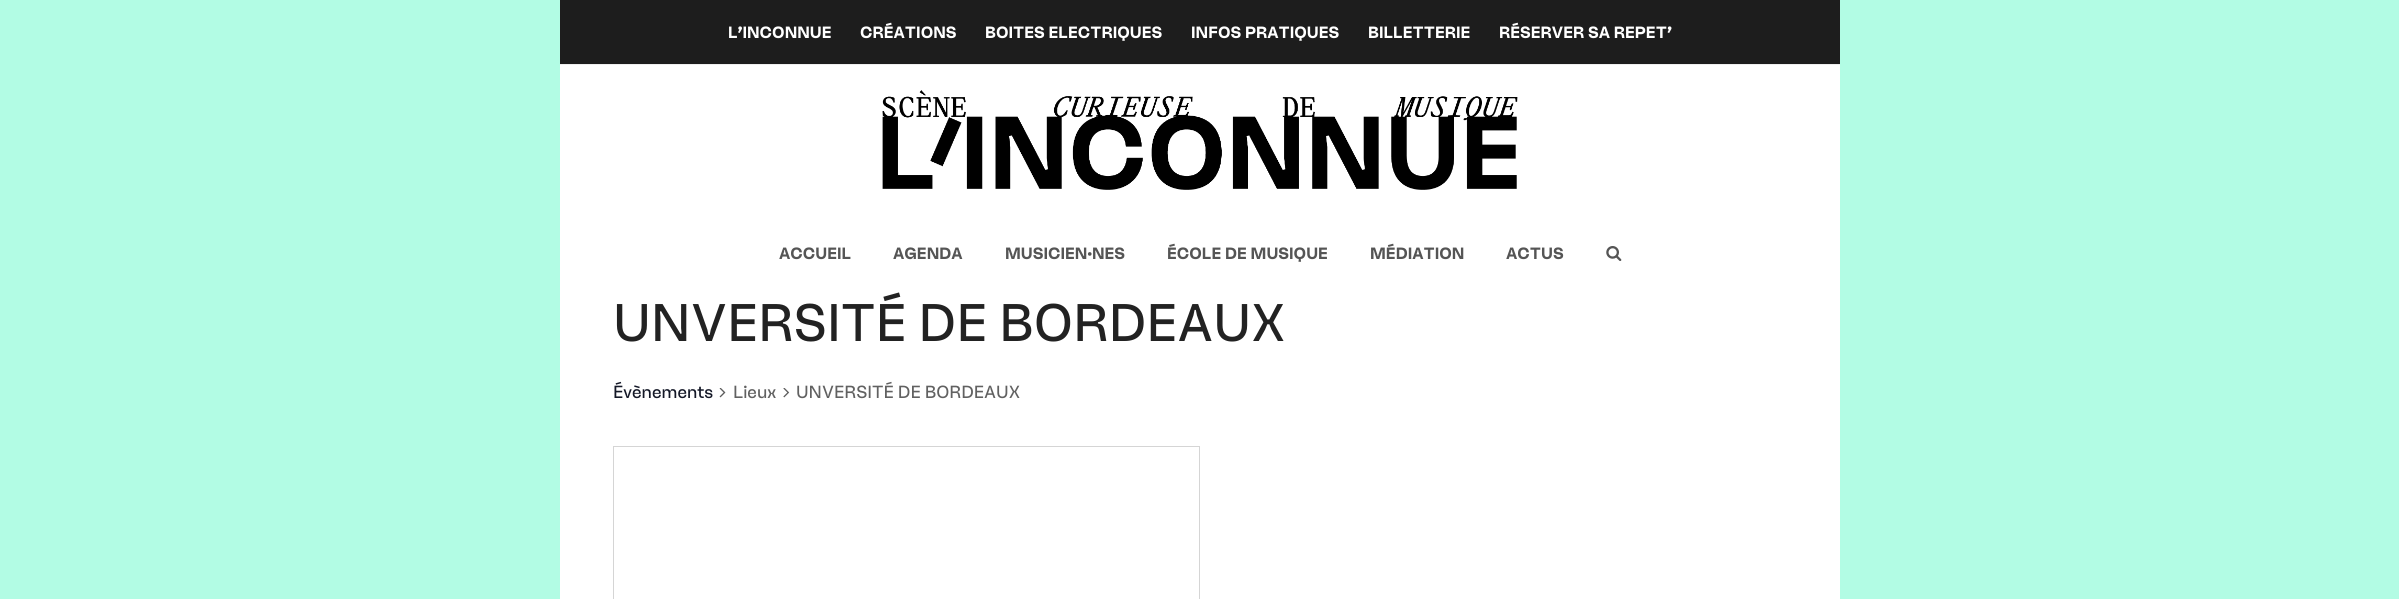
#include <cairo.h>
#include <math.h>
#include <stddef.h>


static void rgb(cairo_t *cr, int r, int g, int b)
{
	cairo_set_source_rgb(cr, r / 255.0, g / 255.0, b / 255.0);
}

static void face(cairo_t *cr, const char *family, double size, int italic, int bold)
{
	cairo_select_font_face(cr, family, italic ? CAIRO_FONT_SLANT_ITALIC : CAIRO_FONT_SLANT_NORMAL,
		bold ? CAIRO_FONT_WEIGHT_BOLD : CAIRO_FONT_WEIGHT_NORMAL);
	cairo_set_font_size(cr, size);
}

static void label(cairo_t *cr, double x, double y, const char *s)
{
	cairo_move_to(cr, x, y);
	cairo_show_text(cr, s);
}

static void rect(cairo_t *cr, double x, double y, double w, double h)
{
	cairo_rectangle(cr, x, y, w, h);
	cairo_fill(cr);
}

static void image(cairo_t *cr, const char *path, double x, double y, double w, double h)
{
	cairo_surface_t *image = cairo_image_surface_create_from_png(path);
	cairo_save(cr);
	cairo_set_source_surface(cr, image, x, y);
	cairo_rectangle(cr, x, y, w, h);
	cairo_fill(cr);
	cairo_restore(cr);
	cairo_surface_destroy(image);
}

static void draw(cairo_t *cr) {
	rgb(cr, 178, 252, 228);
	cairo_paint(cr);
	rgb(cr, 255, 255, 255);
	rect(cr, 560, 65, 1280, 534);
	rgb(cr, 29, 29, 29);
	rect(cr, 560, 0, 1280, 64);
	rgb(cr, 238, 238, 238);
	rect(cr, 560, 64, 1280, 1);
	face(cr, "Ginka", 16.25, 0, 1);
	rgb(cr, 255, 255, 255);
	label(cr, 728, 38, "L’INCONNUE");
	label(cr, 860, 38, "CRÉATIONS");
	label(cr, 985, 38, "BOITES ELECTRIQUES");
	label(cr, 1191, 38, "INFOS PRATIQUES");
	label(cr, 1368, 38, "BILLETTERIE");
	label(cr, 1499, 38, "RÉSERVER SA REPET’");
	image(cr, "image0.png", 882, 90, 636, 100);
	rgb(cr, 85, 85, 85);
	label(cr, 779, 259, "ACCUEIL");
	label(cr, 893, 259, "AGENDA");
	label(cr, 1005, 259, "MUSICIEN·NES");
	label(cr, 1167, 259, "ÉCOLE DE MUSIQUE");
	label(cr, 1370, 259, "MÉDIATION");
	label(cr, 1506, 259, "ACTUS");
	image(cr, "image1.png", 1606, 246, 16, 15);
	face(cr, "Ginka", 52.5, 0, 0);
	rgb(cr, 34, 34, 34);
	label(cr, 613, 341, "UNVERSITÉ DE BORDEAUX");
	face(cr, "Ginka", 17.5, 0, 0);
	rgb(cr, 20, 24, 39);
	label(cr, 613, 398, "Évènements");
	image(cr, "image2.png", 719, 388, 7, 10);
	rgb(cr, 97, 97, 97);
	label(cr, 733, 398, "Lieux");
	image(cr, "image3.png", 783, 388, 7, 10);
	label(cr, 796, 398, "UNVERSITÉ DE BORDEAUX");
	cairo_rectangle(cr, 613.5, 446.5, 586, 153);
	rgb(cr, 213, 213, 213);
	cairo_set_line_width(cr, 1);
	cairo_stroke(cr);
}

int main(void) {
	cairo_surface_t *surface = cairo_image_surface_create(CAIRO_FORMAT_RGB24, 2399, 599);
	cairo_t *cr = cairo_create(surface);
	cairo_font_options_t *options = cairo_font_options_create();
	cairo_font_options_set_hint_metrics(options, CAIRO_HINT_METRICS_OFF);
	cairo_font_options_set_hint_style(options, CAIRO_HINT_STYLE_NONE);
	cairo_set_font_options(cr, options);
	cairo_set_miter_limit(cr, 4);
	draw(cr);
	cairo_surface_write_to_png(surface, "render.png");
	cairo_font_options_destroy(options);
	cairo_destroy(cr);
	cairo_surface_destroy(surface);
	return 0;
}
